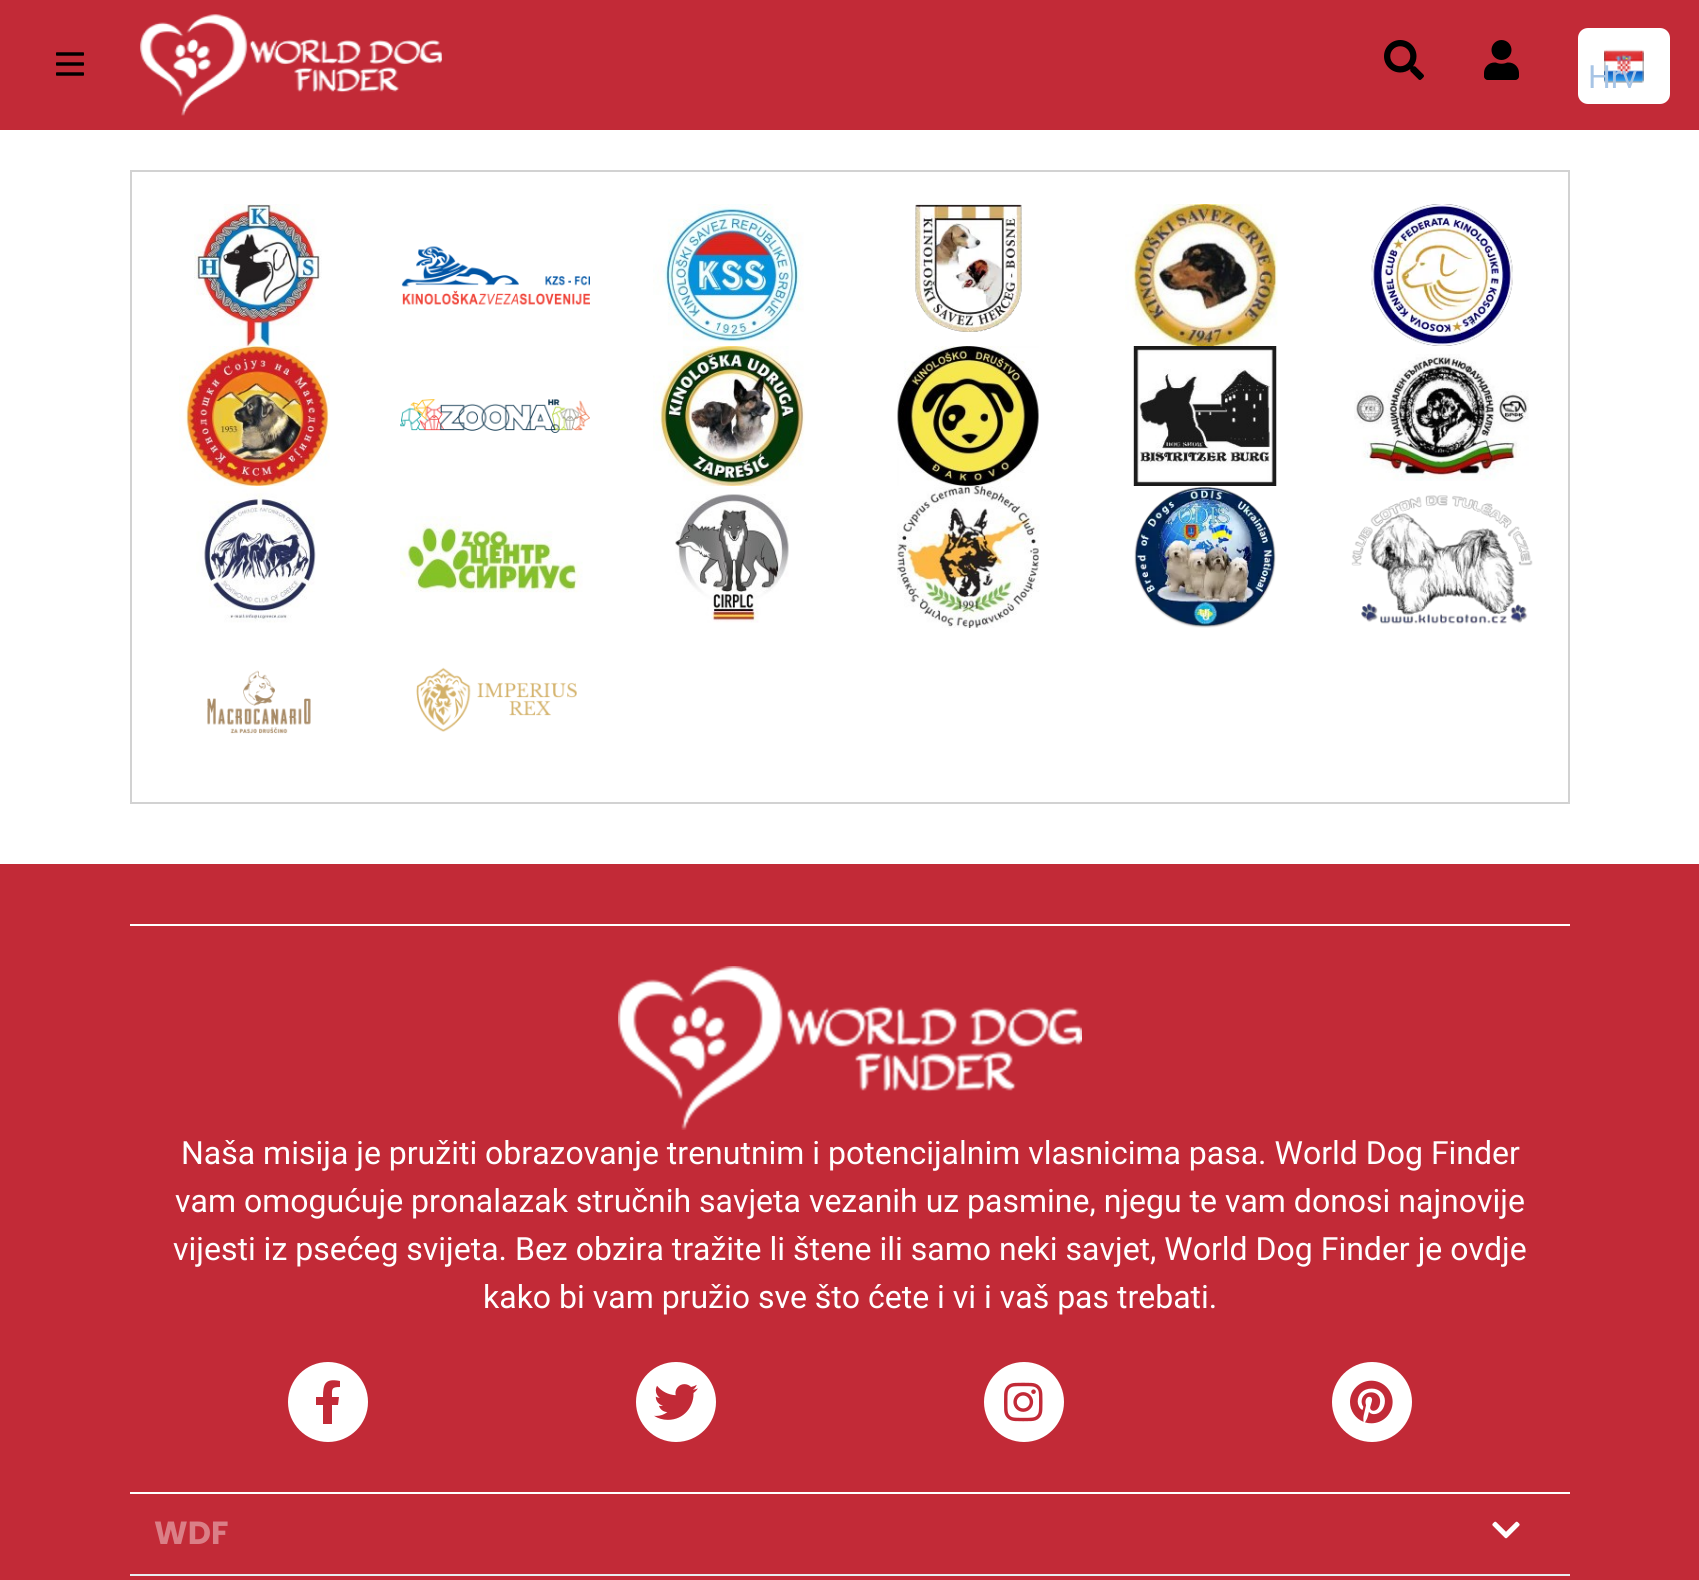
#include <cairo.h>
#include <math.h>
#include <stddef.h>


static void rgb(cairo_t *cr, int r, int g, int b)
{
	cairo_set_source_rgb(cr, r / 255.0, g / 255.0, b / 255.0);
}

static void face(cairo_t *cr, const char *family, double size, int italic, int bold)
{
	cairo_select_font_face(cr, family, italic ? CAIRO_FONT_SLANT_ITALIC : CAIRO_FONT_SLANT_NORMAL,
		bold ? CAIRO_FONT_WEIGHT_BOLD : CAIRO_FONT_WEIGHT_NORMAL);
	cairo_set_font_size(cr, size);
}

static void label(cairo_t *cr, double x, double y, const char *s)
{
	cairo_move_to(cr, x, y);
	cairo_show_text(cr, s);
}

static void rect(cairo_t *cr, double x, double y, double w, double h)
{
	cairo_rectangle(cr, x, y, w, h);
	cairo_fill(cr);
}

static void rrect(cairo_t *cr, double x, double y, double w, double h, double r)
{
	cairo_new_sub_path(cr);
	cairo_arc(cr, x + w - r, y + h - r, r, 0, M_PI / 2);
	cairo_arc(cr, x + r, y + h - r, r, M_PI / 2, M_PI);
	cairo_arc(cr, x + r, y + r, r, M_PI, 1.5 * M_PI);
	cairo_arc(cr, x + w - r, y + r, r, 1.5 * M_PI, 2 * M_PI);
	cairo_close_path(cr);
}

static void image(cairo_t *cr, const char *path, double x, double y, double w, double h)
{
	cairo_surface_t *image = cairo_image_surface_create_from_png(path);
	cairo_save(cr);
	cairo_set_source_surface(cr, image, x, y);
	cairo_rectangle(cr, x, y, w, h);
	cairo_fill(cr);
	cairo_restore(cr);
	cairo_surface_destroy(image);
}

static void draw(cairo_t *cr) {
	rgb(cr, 255, 255, 255);
	cairo_paint(cr);
	rgb(cr, 194, 42, 55);
	rect(cr, 0, 0, 1699, 130);
	image(cr, "image0.png", 56, 52, 28, 24);
	image(cr, "image1.png", 140, 14, 302, 102);
	image(cr, "image2.png", 1384, 40, 40, 40);
	image(cr, "image3.png", 1484, 40, 35, 40);
	rgb(cr, 255, 255, 255);
	rrect(cr, 1578, 28, 92, 76, 10);
	cairo_fill(cr);
	image(cr, "image4.png", 1604, 49, 40, 34);
	face(cr, "Roboto", 32, 0, 0);
	rgb(cr, 167, 196, 229);
	label(cr, 1588, 88, "Hrv");
	cairo_rectangle(cr, 131, 171, 1438, 632);
	rgb(cr, 210, 210, 210);
	cairo_stroke(cr);
	image(cr, "image5.png", 194, 204, 128, 142);
	image(cr, "image6.png", 401, 246, 189, 59);
	image(cr, "image7.png", 653, 204, 151, 139);
	image(cr, "image8.png", 915, 204, 107, 128);
	image(cr, "image9.png", 1125, 204, 153, 142);
	image(cr, "image10.png", 1371, 204, 142, 142);
	image(cr, "image11.png", 179, 346, 151, 140);
	image(cr, "image12.png", 400, 399, 190, 34);
	image(cr, "image13.png", 653, 346, 152, 140);
	image(cr, "image14.png", 897, 346, 142, 140);
	image(cr, "image15.png", 1133, 346, 144, 140);
	image(cr, "image16.png", 1354, 354, 175, 127);
	image(cr, "image17.png", 196, 486, 120, 137);
	image(cr, "image18.png", 400, 516, 183, 77);
	image(cr, "image19.png", 675, 494, 114, 129);
	image(cr, "image20.png", 897, 486, 143, 142);
	image(cr, "image21.png", 1134, 487, 142, 141);
	image(cr, "image22.png", 1351, 495, 182, 129);
	image(cr, "image23.png", 207, 670, 104, 64);
	image(cr, "image24.png", 416, 667, 161, 65);
	rgb(cr, 194, 42, 55);
	rect(cr, 0, 864, 1699, 716);
	rgb(cr, 255, 255, 255);
	rect(cr, 130, 924, 1440, 2);
	rect(cr, 130, 1492, 1440, 2);
	image(cr, "image25.png", 618, 966, 464, 164);
	label(cr, 181, 1164, "Naša misija je pružiti obrazovanje trenutnim i potencijalnim vlasnicima pasa. World Dog Finder");
	label(cr, 175, 1212, "vam omogućuje pronalazak stručnih savjeta vezanih uz pasmine, njegu te vam donosi najnovije");
	label(cr, 173, 1260, "vijesti iz psećeg svijeta. Bez obzira tražite li štene ili samo neki savjet, World Dog Finder je ovdje");
	label(cr, 483, 1308, "kako bi vam pružio sve što ćete i vi i vaš pas trebati.");
	cairo_new_path(cr);
	cairo_arc(cr, 328, 1402, 40, 0, 2 * M_PI);
	cairo_fill(cr);
	rgb(cr, 194, 42, 55);
	cairo_new_path(cr);
	cairo_move_to(cr, 338, 1405);
	cairo_line_to(cr, 339, 1397);
	cairo_line_to(cr, 332, 1397);
	cairo_curve_to(cr, 332, 1389, 331, 1387, 340, 1387);
	cairo_line_to(cr, 340, 1381);
	cairo_curve_to(cr, 325, 1378, 323, 1384, 323, 1397);
	cairo_line_to(cr, 316, 1397);
	cairo_line_to(cr, 316, 1405);
	cairo_line_to(cr, 323, 1405);
	cairo_line_to(cr, 323, 1424);
	cairo_line_to(cr, 332, 1424);
	cairo_line_to(cr, 332, 1405);
	cairo_close_path(cr);
	cairo_fill(cr);
	rgb(cr, 255, 255, 255);
	cairo_arc(cr, 676, 1402, 40, 0, 2 * M_PI);
	cairo_fill(cr);
	image(cr, "image26.png", 654, 1384, 44, 36);
	cairo_arc(cr, 1024, 1402, 40, 0, 2 * M_PI);
	cairo_fill(cr);
	image(cr, "image27.png", 1004, 1382, 39, 40);
	cairo_arc(cr, 1372, 1402, 40, 0, 2 * M_PI);
	cairo_fill(cr);
	image(cr, "image28.png", 1350, 1380, 43, 44);
	rgb(cr, 233, 236, 239);
	rect(cr, 130, 1574, 1440, 2);
	face(cr, "Poppins", 32, 0, 1);
	rgb(cr, 218, 127, 135);
	label(cr, 154, 1544, "WDF");
	image(cr, "image29.png", 1492, 1521, 28, 18);
}

int main(void) {
	cairo_surface_t *surface = cairo_image_surface_create(CAIRO_FORMAT_RGB24, 1699, 1580);
	cairo_t *cr = cairo_create(surface);
	cairo_font_options_t *options = cairo_font_options_create();
	cairo_font_options_set_hint_metrics(options, CAIRO_HINT_METRICS_OFF);
	cairo_font_options_set_hint_style(options, CAIRO_HINT_STYLE_NONE);
	cairo_set_font_options(cr, options);
	cairo_set_miter_limit(cr, 4);
	draw(cr);
	cairo_surface_write_to_png(surface, "render.png");
	cairo_font_options_destroy(options);
	cairo_destroy(cr);
	cairo_surface_destroy(surface);
	return 0;
}
